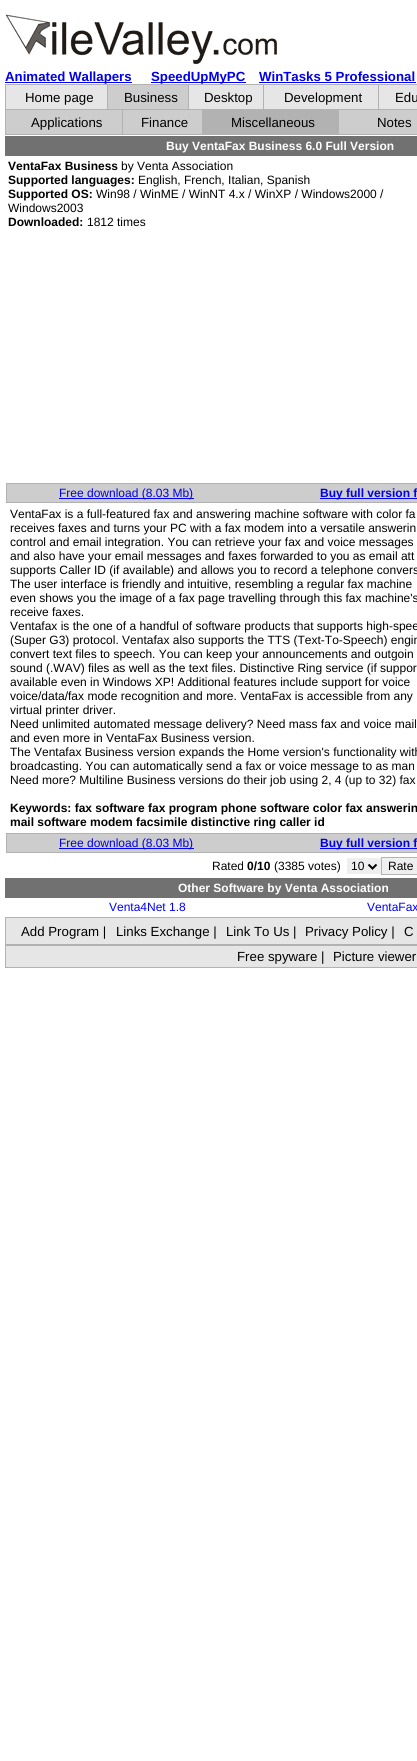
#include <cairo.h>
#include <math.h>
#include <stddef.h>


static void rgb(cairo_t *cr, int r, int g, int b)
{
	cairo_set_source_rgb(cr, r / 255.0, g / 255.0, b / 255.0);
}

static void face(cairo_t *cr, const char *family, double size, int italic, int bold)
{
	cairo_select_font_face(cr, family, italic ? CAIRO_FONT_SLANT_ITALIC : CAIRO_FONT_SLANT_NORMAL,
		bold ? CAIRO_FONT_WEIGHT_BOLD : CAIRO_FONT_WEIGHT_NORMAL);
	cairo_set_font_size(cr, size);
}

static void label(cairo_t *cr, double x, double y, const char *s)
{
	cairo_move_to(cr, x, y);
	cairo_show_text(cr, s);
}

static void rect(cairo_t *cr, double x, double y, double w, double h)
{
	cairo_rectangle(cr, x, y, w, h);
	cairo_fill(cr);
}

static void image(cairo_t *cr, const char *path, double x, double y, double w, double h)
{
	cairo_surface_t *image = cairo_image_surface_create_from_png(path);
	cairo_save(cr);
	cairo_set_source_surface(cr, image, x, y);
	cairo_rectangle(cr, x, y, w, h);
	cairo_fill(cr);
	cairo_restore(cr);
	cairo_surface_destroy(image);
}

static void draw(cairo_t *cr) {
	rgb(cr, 255, 255, 255);
	cairo_paint(cr);
	image(cr, "image0.png", 5, 14, 273, 51);
	rgb(cr, 0, 0, 238);
	rect(cr, 5, 82, 127, 1);
	face(cr, "Liberation Sans", 13.25, 0, 1);
	label(cr, 5, 81, "Animated Wallapers");
	rect(cr, 151, 82, 95, 1);
	label(cr, 151, 81, "SpeedUpMyPC");
	label(cr, 259, 81, "WinTasks 5 Professional");
	rect(cr, 259, 82, 157, 1);
	rgb(cr, 230, 230, 230);
	cairo_rectangle(cr, 5.5, 84.5, 102, 25);
	cairo_fill_preserve(cr);
	rgb(cr, 178, 178, 178);
	cairo_set_line_width(cr, 1);
	cairo_stroke(cr);
	face(cr, "Liberation Sans", 13.25, 0, 0);
	rgb(cr, 0, 0, 0);
	label(cr, 25, 102, "Home page");
	rgb(cr, 205, 205, 205);
	rect(cr, 108, 85, 80, 24);
	rgb(cr, 178, 178, 178);
	rect(cr, 108, 84, 309, 1);
	rect(cr, 188, 84, 1, 26);
	rect(cr, 108, 109, 81, 1);
	rgb(cr, 0, 0, 0);
	label(cr, 124, 102, "Business");
	rgb(cr, 230, 230, 230);
	rect(cr, 189, 85, 74, 24);
	rgb(cr, 178, 178, 178);
	rect(cr, 263, 84, 1, 26);
	rect(cr, 189, 109, 75, 1);
	rgb(cr, 0, 0, 0);
	label(cr, 204, 102, "Desktop");
	rgb(cr, 230, 230, 230);
	rect(cr, 264, 85, 114, 24);
	rgb(cr, 178, 178, 178);
	rect(cr, 378, 84, 1, 26);
	rect(cr, 264, 109, 153, 1);
	rgb(cr, 0, 0, 0);
	label(cr, 284, 102, "Development");
	rgb(cr, 230, 230, 230);
	rect(cr, 379, 85, 38, 24);
	rgb(cr, 0, 0, 0);
	label(cr, 395, 102, "Edu");
	rgb(cr, 205, 205, 205);
	rect(cr, 6, 110, 116, 24);
	rgb(cr, 178, 178, 178);
	rect(cr, 122, 110, 1, 25);
	rect(cr, 5, 134, 118, 1);
	rect(cr, 5, 110, 1, 25);
	rgb(cr, 0, 0, 0);
	label(cr, 31, 127, "Applications");
	rgb(cr, 205, 205, 205);
	rect(cr, 123, 110, 79, 24);
	rgb(cr, 178, 178, 178);
	rect(cr, 202, 110, 137, 25);
	rect(cr, 123, 134, 80, 1);
	rgb(cr, 0, 0, 0);
	label(cr, 141, 127, "Finance");
	label(cr, 231, 127, "Miscellaneous");
	rgb(cr, 205, 205, 205);
	rect(cr, 339, 110, 78, 24);
	rgb(cr, 178, 178, 178);
	rect(cr, 339, 134, 78, 1);
	rgb(cr, 0, 0, 0);
	label(cr, 377, 127, "Notes");
	rgb(cr, 113, 113, 113);
	rect(cr, 5, 136, 412, 20);
	face(cr, "Liberation Sans", 12, 0, 1);
	rgb(cr, 255, 255, 255);
	label(cr, 166, 150, "Buy VentaFax Business 6.0 Full Version");
	rgb(cr, 0, 0, 0);
	label(cr, 8, 170, "VentaFax Business");
	face(cr, "Liberation Sans", 12, 0, 0);
	label(cr, 121, 170, "by Venta Association");
	face(cr, "Liberation Sans", 12, 0, 1);
	label(cr, 8, 184, "Supported languages:");
	face(cr, "Liberation Sans", 12, 0, 0);
	label(cr, 138, 184, "English, French, Italian, Spanish");
	face(cr, "Liberation Sans", 12, 0, 1);
	label(cr, 8, 198, "Supported OS:");
	face(cr, "Liberation Sans", 12, 0, 0);
	label(cr, 96, 198, "Win98 / WinME / WinNT 4.x / WinXP / Windows2000 /");
	label(cr, 8, 212, "Windows2003");
	face(cr, "Liberation Sans", 12, 0, 1);
	label(cr, 8, 226, "Downloaded:");
	face(cr, "Liberation Sans", 12, 0, 0);
	label(cr, 87, 226, "1812 times");
	rgb(cr, 205, 205, 205);
	cairo_rectangle(cr, 6.5, 483.5, 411, 19);
	cairo_fill_preserve(cr);
	rgb(cr, 178, 178, 178);
	cairo_stroke(cr);
	rgb(cr, 0, 0, 238);
	rect(cr, 59, 498, 135, 1);
	label(cr, 59, 497, "Free download (8.03 Mb)");
	rect(cr, 320, 498, 97, 1);
	face(cr, "Liberation Sans", 12, 0, 1);
	label(cr, 320, 497, "Buy full version f");
	face(cr, "Liberation Sans", 12, 0, 0);
	rgb(cr, 0, 0, 0);
	label(cr, 10, 518, "VentaFax is a full-featured fax and answering machine software with color fa");
	label(cr, 10, 532, "receives faxes and turns your PC with a fax modem into a versatile answerin");
	label(cr, 10, 546, "control and email integration. You can retrieve your fax and voice messages");
	label(cr, 10, 560, "and also have your email messages and faxes forwarded to you as email att");
	label(cr, 10, 574, "supports Caller ID (if available) and allows you to record a telephone convers");
	label(cr, 10, 588, "The user interface is friendly and intuitive, resembling a regular fax machine");
	label(cr, 10, 602, "even shows you the image of a fax page travelling through this fax machine's");
	label(cr, 10, 616, "receive faxes.");
	label(cr, 10, 630, "Ventafax is the one of a handful of software products that supports high-spee");
	label(cr, 10, 644, "(Super G3) protocol. Ventafax also supports the TTS (Text-To-Speech) engin");
	label(cr, 10, 658, "convert text files to speech. You can keep your announcements and outgoin");
	label(cr, 10, 672, "sound (.WAV) files as well as the text files. Distinctive Ring service (if suppor");
	label(cr, 10, 686, "available even in Windows XP! Additional features include support for voice");
	label(cr, 10, 700, "voice/data/fax mode recognition and more. VentaFax is accessible from any");
	label(cr, 10, 714, "virtual printer driver.");
	label(cr, 10, 728, "Need unlimited automated message delivery? Need mass fax and voice mail");
	label(cr, 10, 742, "and even more in VentaFax Business version.");
	label(cr, 10, 756, "The Ventafax Business version expands the Home version's functionality with");
	label(cr, 10, 770, "broadcasting. You can automatically send a fax or voice message to as man");
	label(cr, 10, 784, "Need more? Multiline Business versions do their job using 2, 4 (up to 32) fax");
	face(cr, "Liberation Sans", 12, 0, 1);
	label(cr, 10, 812, "Keywords: fax software fax program phone software color fax answerin");
	label(cr, 10, 826, "mail software modem facsimile distinctive ring caller id");
	rgb(cr, 205, 205, 205);
	cairo_rectangle(cr, 6.5, 833.5, 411, 19);
	cairo_fill_preserve(cr);
	rgb(cr, 178, 178, 178);
	cairo_stroke(cr);
	rgb(cr, 0, 0, 238);
	rect(cr, 59, 848, 135, 1);
	face(cr, "Liberation Sans", 12, 0, 0);
	label(cr, 59, 847, "Free download (8.03 Mb)");
	rect(cr, 320, 848, 97, 1);
	face(cr, "Liberation Sans", 12, 0, 1);
	label(cr, 320, 847, "Buy full version f");
	face(cr, "Liberation Sans", 12, 0, 0);
	rgb(cr, 0, 0, 0);
	label(cr, 212, 870, "Rated");
	face(cr, "Liberation Sans", 12, 0, 1);
	label(cr, 247, 870, "0/10");
	face(cr, "Liberation Sans", 12, 0, 0);
	label(cr, 274, 870, "(3385 votes)");
	rgb(cr, 239, 239, 239);
	rect(cr, 347, 858, 34, 16);
	cairo_new_path(cr);
	cairo_move_to(cr, 368.5, 864.5);
	cairo_line_to(cr, 372.5, 868.5);
	cairo_line_to(cr, 376.5, 864.5);
	rgb(cr, 0, 0, 0);
	cairo_set_line_width(cr, 2);
	cairo_stroke(cr);
	label(cr, 351, 870, "10");
	rgb(cr, 239, 239, 239);
	cairo_rectangle(cr, 381.5, 857.5, 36, 17);
	cairo_fill_preserve(cr);
	rgb(cr, 180, 180, 180);
	cairo_set_line_width(cr, 1);
	cairo_stroke(cr);
	rgb(cr, 0, 0, 0);
	label(cr, 388, 870, "Rate");
	rgb(cr, 113, 113, 113);
	rect(cr, 5, 878, 412, 20);
	face(cr, "Liberation Sans", 12, 0, 1);
	rgb(cr, 255, 255, 255);
	label(cr, 178, 892, "Other Software by Venta Association");
	face(cr, "Liberation Sans", 12, 0, 0);
	rgb(cr, 0, 0, 255);
	label(cr, 109, 911, "Venta4Net 1.8");
	label(cr, 367, 911, "VentaFax");
	rgb(cr, 230, 230, 230);
	cairo_rectangle(cr, 5.5, 917.5, 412, 27);
	cairo_fill_preserve(cr);
	rgb(cr, 178, 178, 178);
	cairo_stroke(cr);
	face(cr, "Liberation Sans", 13.25, 0, 0);
	rgb(cr, 0, 0, 0);
	label(cr, 21, 936, "Add Program |");
	label(cr, 116, 936, "Links Exchange |");
	label(cr, 226, 936, "Link To Us |");
	label(cr, 305, 936, "Privacy Policy |");
	label(cr, 404, 936, "C");
	rgb(cr, 230, 230, 230);
	cairo_rectangle(cr, 5.5, 945.5, 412, 22);
	cairo_fill_preserve(cr);
	rgb(cr, 178, 178, 178);
	cairo_stroke(cr);
	rgb(cr, 0, 0, 0);
	label(cr, 237, 961, "Free spyware |");
	label(cr, 333, 961, "Picture viewer");
}

int main(void) {
	cairo_surface_t *surface = cairo_image_surface_create(CAIRO_FORMAT_RGB24, 417, 1761);
	cairo_t *cr = cairo_create(surface);
	cairo_font_options_t *options = cairo_font_options_create();
	cairo_font_options_set_hint_metrics(options, CAIRO_HINT_METRICS_OFF);
	cairo_font_options_set_hint_style(options, CAIRO_HINT_STYLE_NONE);
	cairo_set_font_options(cr, options);
	cairo_set_miter_limit(cr, 4);
	draw(cr);
	cairo_surface_write_to_png(surface, "render.png");
	cairo_font_options_destroy(options);
	cairo_destroy(cr);
	cairo_surface_destroy(surface);
	return 0;
}
